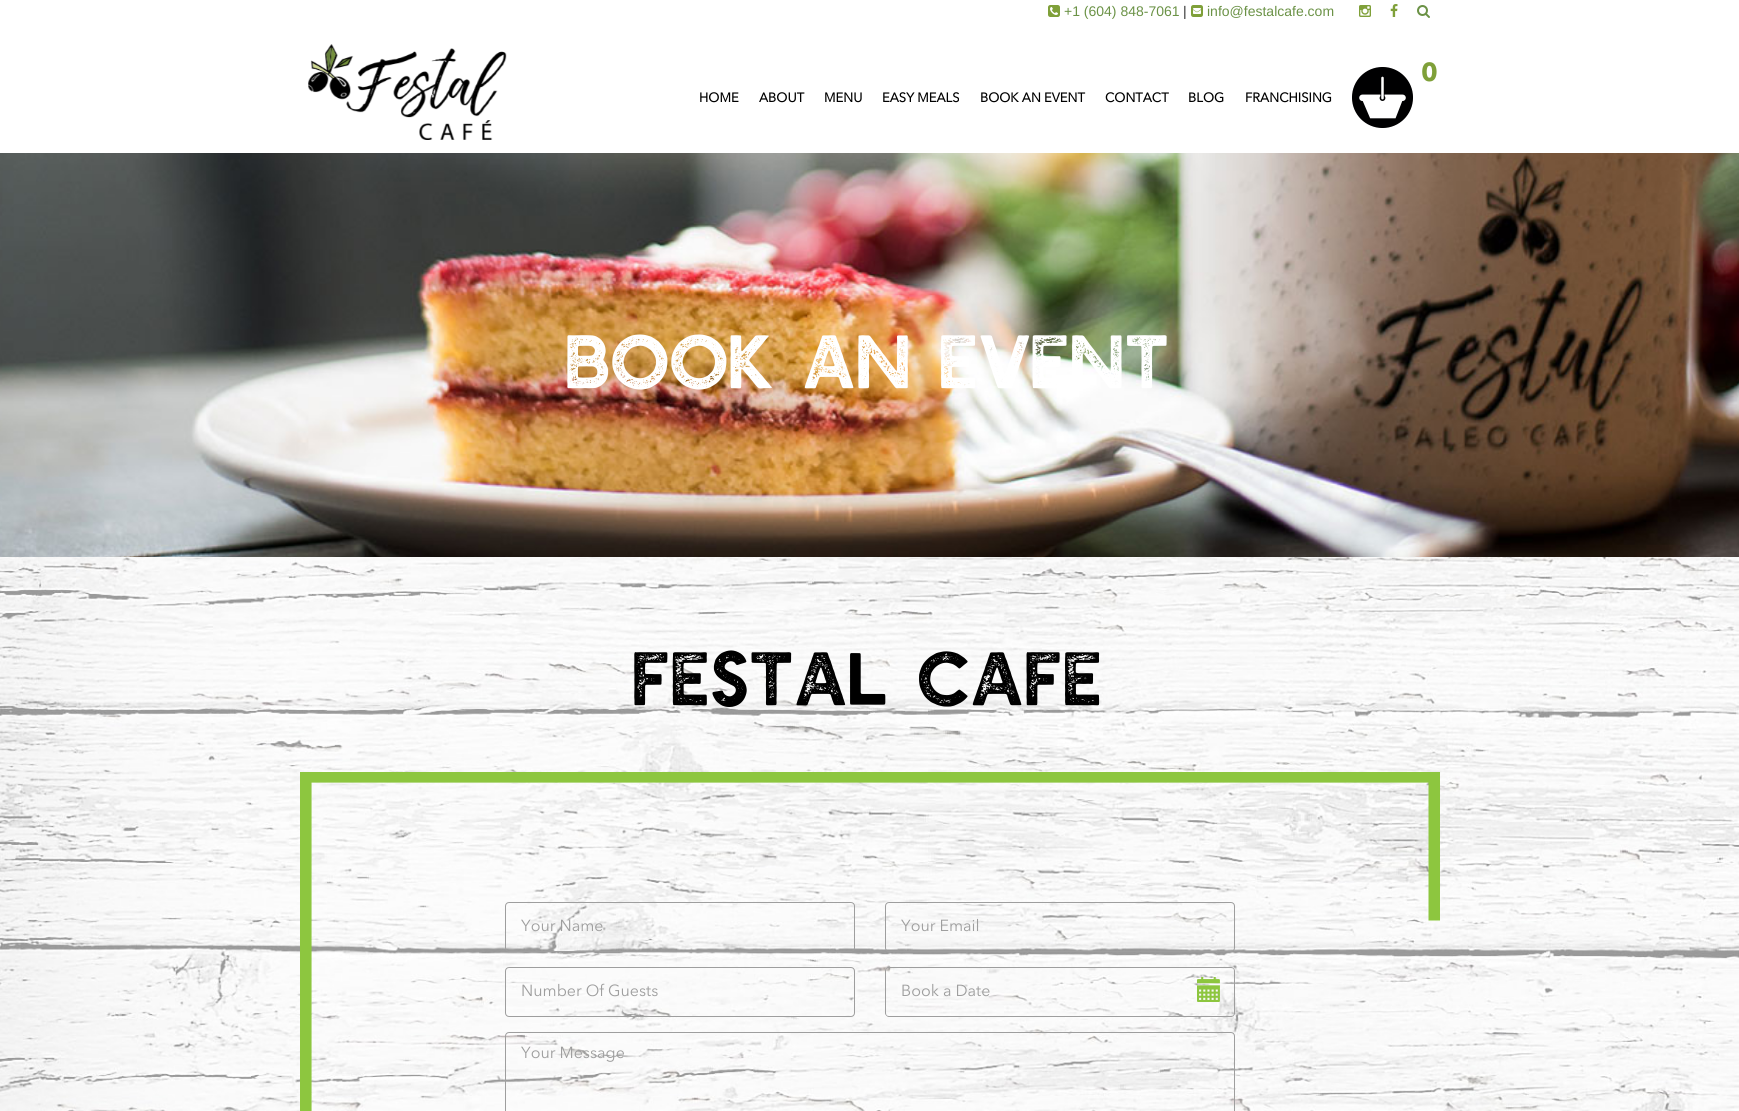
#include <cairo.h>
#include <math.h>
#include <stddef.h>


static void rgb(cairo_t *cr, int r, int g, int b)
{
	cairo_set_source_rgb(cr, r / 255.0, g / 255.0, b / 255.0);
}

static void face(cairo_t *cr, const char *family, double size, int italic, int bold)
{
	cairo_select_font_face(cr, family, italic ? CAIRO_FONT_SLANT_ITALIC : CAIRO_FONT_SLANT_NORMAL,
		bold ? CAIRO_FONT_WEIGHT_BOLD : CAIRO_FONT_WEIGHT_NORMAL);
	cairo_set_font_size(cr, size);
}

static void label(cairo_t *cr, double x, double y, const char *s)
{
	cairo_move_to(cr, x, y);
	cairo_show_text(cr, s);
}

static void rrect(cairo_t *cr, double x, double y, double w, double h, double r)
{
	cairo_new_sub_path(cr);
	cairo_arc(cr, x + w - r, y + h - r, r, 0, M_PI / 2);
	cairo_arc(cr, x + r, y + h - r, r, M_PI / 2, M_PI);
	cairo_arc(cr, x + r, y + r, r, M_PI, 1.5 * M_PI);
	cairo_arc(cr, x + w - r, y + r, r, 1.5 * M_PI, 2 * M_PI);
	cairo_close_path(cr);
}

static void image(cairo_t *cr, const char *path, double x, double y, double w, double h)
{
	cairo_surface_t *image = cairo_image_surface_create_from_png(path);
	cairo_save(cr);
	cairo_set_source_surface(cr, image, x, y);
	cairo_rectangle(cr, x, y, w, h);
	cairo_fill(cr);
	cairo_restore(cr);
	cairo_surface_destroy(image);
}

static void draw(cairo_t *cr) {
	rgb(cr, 255, 255, 255);
	cairo_paint(cr);
	image(cr, "image0.png", 0, 557, 1739, 554);
	image(cr, "image1.png", 1048, 5, 12, 12);
	face(cr, "Liberation Sans", 14, 0, 0);
	rgb(cr, 107, 146, 70);
	label(cr, 1064, 16, "+1 (604) 848-7061");
	rgb(cr, 50, 50, 50);
	label(cr, 1183, 16, "|");
	image(cr, "image2.png", 1191, 5, 12, 12);
	rgb(cr, 107, 146, 70);
	label(cr, 1207, 16, "info@festalcafe.com");
	image(cr, "image3.png", 1359, 5, 12, 12);
	image(cr, "image4.png", 1390, 4, 8, 13);
	image(cr, "image5.png", 1417, 5, 13, 13);
	image(cr, "image6.png", 308, 44, 199, 96);
	image(cr, "image7.png", 1352, 67, 61, 61);
	face(cr, "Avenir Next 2", 26, 0, 1);
	rgb(cr, 127, 160, 57);
	label(cr, 1421, 81, "0");
	face(cr, "Avenir Next", 13, 0, 1);
	rgb(cr, 0, 0, 0);
	label(cr, 699, 102, "HOME");
	label(cr, 759, 102, "ABOUT");
	label(cr, 824, 102, "MENU");
	label(cr, 882, 102, "EASY MEALS");
	label(cr, 980, 102, "BOOK AN EVENT");
	label(cr, 1105, 102, "CONTACT");
	label(cr, 1188, 102, "BLOG");
	label(cr, 1245, 102, "FRANCHISING");
	image(cr, "image8.png", 0, 153, 1739, 404);
	face(cr, "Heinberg", 69.5, 0, 0);
	rgb(cr, 255, 255, 255);
	label(cr, 567, 388, "BOOK AN EVENT");
	rgb(cr, 0, 0, 0);
	label(cr, 634, 705, "FESTAL CAFE");
	image(cr, "image9.png", 300, 772, 1140, 339);
	rrect(cr, 505.5, 902.5, 349, 49, 3.5);
	rgb(cr, 158, 158, 158);
	cairo_set_line_width(cr, 1);
	cairo_stroke(cr);
	face(cr, "Avenir Next", 16, 0, 0);
	label(cr, 521, 931, "Your Name");
	rrect(cr, 505.5, 967.5, 349, 49, 3.5);
	cairo_stroke(cr);
	label(cr, 521, 996, "Number Of Guests");
	rrect(cr, 885.5, 902.5, 349, 49, 3.5);
	cairo_stroke(cr);
	label(cr, 901, 931, "Your Email");
	cairo_set_fill_rule(cr, CAIRO_FILL_RULE_EVEN_ODD);
	cairo_new_path(cr);
	cairo_move_to(cr, 889, 967);
	cairo_line_to(cr, 1185, 967);
	cairo_line_to(cr, 1185, 1017);
	cairo_line_to(cr, 889, 1017);
	cairo_curve_to(cr, 887, 1017, 885, 1015, 885, 1013);
	cairo_line_to(cr, 885, 971);
	cairo_curve_to(cr, 885, 969, 887, 967, 889, 967);
	cairo_close_path(cr);
	cairo_move_to(cr, 889, 968);
	cairo_line_to(cr, 1185, 968);
	cairo_line_to(cr, 1185, 1016);
	cairo_line_to(cr, 889, 1016);
	cairo_curve_to(cr, 887, 1016, 886, 1015, 886, 1013);
	cairo_line_to(cr, 886, 971);
	cairo_curve_to(cr, 886, 969, 887, 968, 889, 968);
	cairo_close_path(cr);
	cairo_fill(cr);
	label(cr, 901, 996, "Book a Date");
	cairo_new_path(cr);
	cairo_move_to(cr, 1185, 967);
	cairo_line_to(cr, 1231, 967);
	cairo_curve_to(cr, 1233, 967, 1235, 969, 1235, 971);
	cairo_line_to(cr, 1235, 1013);
	cairo_curve_to(cr, 1235, 1015, 1233, 1017, 1231, 1017);
	cairo_line_to(cr, 1185, 1017);
	cairo_close_path(cr);
	cairo_move_to(cr, 1185, 968);
	cairo_line_to(cr, 1231, 968);
	cairo_curve_to(cr, 1233, 968, 1234, 969, 1234, 971);
	cairo_line_to(cr, 1234, 1013);
	cairo_curve_to(cr, 1234, 1015, 1233, 1016, 1231, 1016);
	cairo_line_to(cr, 1185, 1016);
	cairo_close_path(cr);
	cairo_fill(cr);
	image(cr, "image10.png", 1197, 977, 23, 25);
	rrect(cr, 505.5, 1032.5, 729, 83, 3.5);
	cairo_stroke(cr);
	label(cr, 521, 1058, "Your Message");
}

int main(void) {
	cairo_surface_t *surface = cairo_image_surface_create(CAIRO_FORMAT_RGB24, 1739, 1111);
	cairo_t *cr = cairo_create(surface);
	cairo_font_options_t *options = cairo_font_options_create();
	cairo_font_options_set_hint_metrics(options, CAIRO_HINT_METRICS_OFF);
	cairo_font_options_set_hint_style(options, CAIRO_HINT_STYLE_NONE);
	cairo_set_font_options(cr, options);
	cairo_set_miter_limit(cr, 4);
	draw(cr);
	cairo_surface_write_to_png(surface, "render.png");
	cairo_font_options_destroy(options);
	cairo_destroy(cr);
	cairo_surface_destroy(surface);
	return 0;
}
